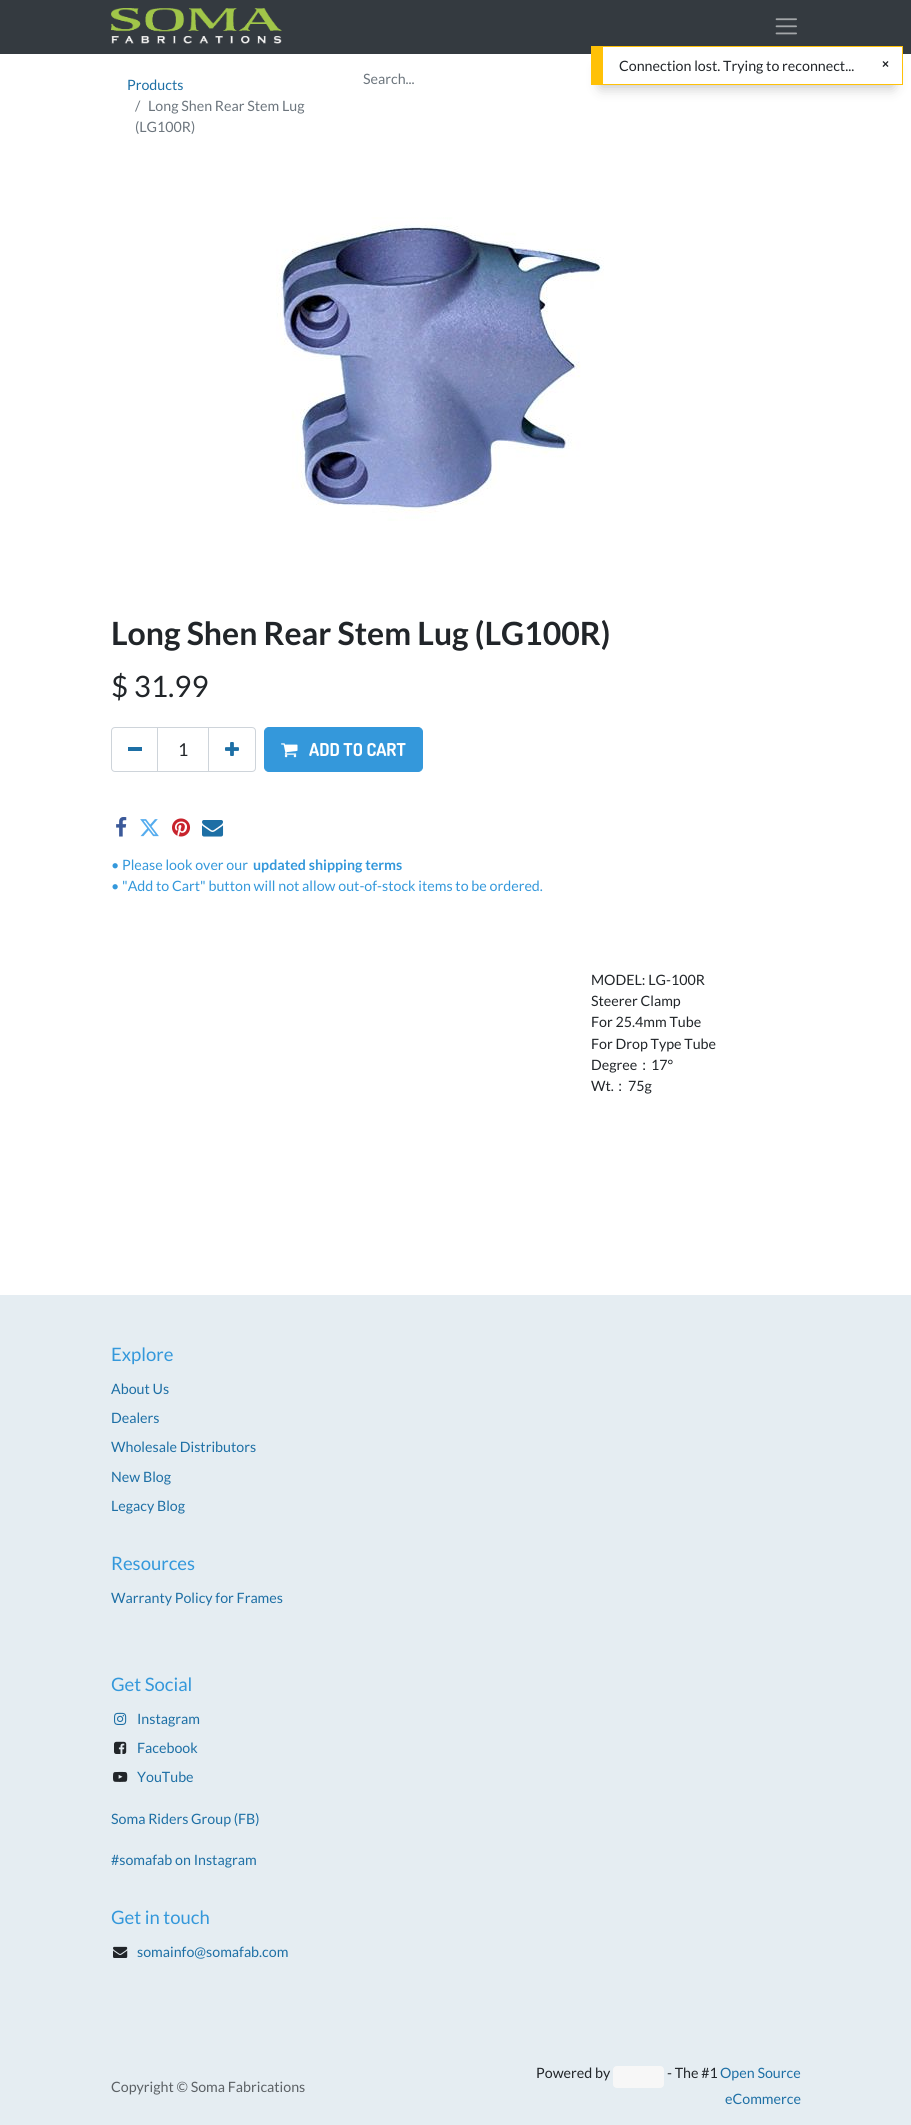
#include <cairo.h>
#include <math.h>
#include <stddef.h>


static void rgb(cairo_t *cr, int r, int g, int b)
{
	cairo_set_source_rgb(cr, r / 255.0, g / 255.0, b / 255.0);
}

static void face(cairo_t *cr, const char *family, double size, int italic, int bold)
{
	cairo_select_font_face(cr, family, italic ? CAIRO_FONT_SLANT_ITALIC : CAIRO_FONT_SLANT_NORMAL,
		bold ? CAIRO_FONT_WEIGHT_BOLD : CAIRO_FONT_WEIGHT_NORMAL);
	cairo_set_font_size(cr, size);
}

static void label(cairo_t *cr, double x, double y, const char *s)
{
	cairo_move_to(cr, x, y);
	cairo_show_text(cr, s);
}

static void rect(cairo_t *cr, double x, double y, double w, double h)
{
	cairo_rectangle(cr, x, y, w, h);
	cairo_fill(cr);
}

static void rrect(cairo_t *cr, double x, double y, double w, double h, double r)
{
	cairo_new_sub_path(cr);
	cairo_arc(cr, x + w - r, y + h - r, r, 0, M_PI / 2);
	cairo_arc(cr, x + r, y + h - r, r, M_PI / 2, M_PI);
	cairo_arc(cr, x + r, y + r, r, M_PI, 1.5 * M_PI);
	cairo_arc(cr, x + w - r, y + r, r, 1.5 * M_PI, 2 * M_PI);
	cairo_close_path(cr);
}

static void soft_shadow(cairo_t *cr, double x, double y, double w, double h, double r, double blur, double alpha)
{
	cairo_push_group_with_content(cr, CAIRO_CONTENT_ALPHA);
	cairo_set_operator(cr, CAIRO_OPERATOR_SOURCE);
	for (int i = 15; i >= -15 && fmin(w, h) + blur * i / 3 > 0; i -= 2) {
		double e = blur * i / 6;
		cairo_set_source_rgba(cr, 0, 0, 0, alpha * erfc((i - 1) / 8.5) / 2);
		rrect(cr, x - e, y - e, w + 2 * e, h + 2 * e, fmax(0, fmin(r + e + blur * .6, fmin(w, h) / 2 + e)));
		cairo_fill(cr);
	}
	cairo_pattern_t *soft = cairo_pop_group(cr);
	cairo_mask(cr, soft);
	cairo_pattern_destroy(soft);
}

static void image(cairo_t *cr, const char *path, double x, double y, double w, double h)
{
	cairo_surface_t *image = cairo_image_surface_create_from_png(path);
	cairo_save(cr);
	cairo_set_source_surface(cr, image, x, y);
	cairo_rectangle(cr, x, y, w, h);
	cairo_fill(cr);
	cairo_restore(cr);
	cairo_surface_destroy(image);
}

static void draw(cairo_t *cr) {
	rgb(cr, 255, 255, 255);
	cairo_paint(cr);
	rgb(cr, 52, 58, 64);
	rect(cr, 0, 0, 911, 54);
	rgb(cr, 0, 0, 0);
	soft_shadow(cr, 601, 68, 292, 19, 0, 7, 0.25);
	rgb(cr, 255, 255, 255);
	rect(cr, 603, 47, 299, 37);
	rgb(cr, 255, 193, 7);
	rect(cr, 603, 46, 300, 1);
	rect(cr, 902, 46, 1, 39);
	rect(cr, 603, 84, 300, 1);
	rect(cr, 591, 46, 12, 39);
	face(cr, "Lato", 14.25, 0, 0);
	rgb(cr, 33, 37, 41);
	label(cr, 619, 71, "Connection lost. Trying to reconnect...");
	face(cr, "Liberation Sans", 12, 0, 1);
	label(cr, 882, 68, "×");
	image(cr, "image0.png", 111, 8, 171, 36);
	image(cr, "image1.png", 775, 18, 22, 17);
	face(cr, "Lato", 14.25, 0, 0);
	rgb(cr, 29, 111, 165);
	label(cr, 127, 90, "Products");
	rgb(cr, 108, 117, 125);
	label(cr, 135, 111, "/");
	label(cr, 148, 111, "Long Shen Rear Stem Lug");
	label(cr, 135, 132, "(LG100R)");
	label(cr, 363, 84, "Search...");
	image(cr, "image2.png", 276, 217, 328, 304);
	face(cr, "Lato", 32, 0, 1);
	rgb(cr, 33, 37, 41);
	label(cr, 111, 645, "Long Shen Rear Stem Lug (LG100R)");
	face(cr, "Lato", 29.5, 0, 0);
	label(cr, 111, 697, "$ 31.99");
	cairo_rectangle(cr, 157.5, 727.5, 51, 44);
	rgb(cr, 206, 212, 218);
	cairo_set_line_width(cr, 1);
	cairo_stroke(cr);
	cairo_new_path(cr);
	cairo_move_to(cr, 115, 727.5);
	cairo_line_to(cr, 157.5, 727.5);
	cairo_line_to(cr, 157.5, 771.5);
	cairo_line_to(cr, 115, 771.5);
	cairo_curve_to(cr, 113, 771.5, 111.5, 770, 111.5, 768);
	cairo_line_to(cr, 111.5, 731);
	cairo_curve_to(cr, 111.5, 729, 113, 727.5, 115, 727.5);
	cairo_close_path(cr);
	cairo_stroke(cr);
	rgb(cr, 29, 111, 165);
	rect(cr, 128, 747, 14, 4);
	face(cr, "Lato", 17.75, 0, 0);
	rgb(cr, 33, 37, 41);
	label(cr, 178, 756, "1");
	cairo_new_path(cr);
	cairo_move_to(cr, 208.5, 727.5);
	cairo_line_to(cr, 252, 727.5);
	cairo_curve_to(cr, 254, 727.5, 255.5, 729, 255.5, 731);
	cairo_line_to(cr, 255.5, 768);
	cairo_curve_to(cr, 255.5, 770, 254, 771.5, 252, 771.5);
	cairo_line_to(cr, 208.5, 771.5);
	cairo_close_path(cr);
	rgb(cr, 206, 212, 218);
	cairo_stroke(cr);
	image(cr, "image3.png", 225, 742, 14, 14);
	rgb(cr, 52, 152, 219);
	rrect(cr, 264.5, 727.5, 158, 44, 4.5);
	cairo_fill_preserve(cr);
	cairo_stroke(cr);
	image(cr, "image4.png", 281, 743, 17, 15);
	face(cr, "Dosis", 17.75, 0, 1);
	rgb(cr, 255, 255, 255);
	label(cr, 309, 756, "ADD TO CART");
	image(cr, "image5.png", 116, 817, 11, 20);
	image(cr, "image6.png", 140, 819, 19, 18);
	image(cr, "image7.png", 172, 818, 19, 19);
	image(cr, "image8.png", 202, 820, 22, 17);
	face(cr, "Lato", 14.25, 0, 0);
	rgb(cr, 52, 152, 219);
	label(cr, 111, 870, "• Please look over our");
	face(cr, "Lato", 14.25, 0, 1);
	label(cr, 253, 870, "updated shipping terms");
	face(cr, "Lato", 14.25, 0, 0);
	label(cr, 111, 891, "• \"Add to Cart\" button will not allow out-of-stock items to be ordered.");
	rgb(cr, 33, 37, 41);
	label(cr, 591, 985, "MODEL: LG-100R");
	label(cr, 591, 1006, "Steerer Clamp");
	label(cr, 591, 1027, "For 25.4mm Tube");
	label(cr, 591, 1049, "For Drop Type Tube");
	label(cr, 591, 1070, "Degree");
	face(cr, "WenQuanYi Zen Hei Medium", 14.25, 0, 0);
	label(cr, 637, 1070, "：");
	face(cr, "Lato", 14.25, 0, 0);
	label(cr, 651, 1070, "17°");
	label(cr, 591, 1091, "Wt.");
	face(cr, "WenQuanYi Zen Hei Medium", 14.25, 0, 0);
	label(cr, 613, 1091, "：");
	face(cr, "Lato", 14.25, 0, 0);
	label(cr, 628, 1091, "75g");
	rgb(cr, 229, 237, 242);
	rect(cr, 0, 1295, 911, 830);
	face(cr, "Lato", 18.5, 0, 0);
	rgb(cr, 52, 152, 219);
	label(cr, 111, 1361, "Explore");
	face(cr, "Lato", 14.25, 0, 0);
	rgb(cr, 29, 111, 165);
	label(cr, 111, 1394, "About Us");
	label(cr, 111, 1423, "Dealers");
	label(cr, 111, 1452, "Wholesale Distributors");
	label(cr, 111, 1482, "New Blog");
	label(cr, 111, 1511, "Legacy Blog");
	face(cr, "Lato", 18.5, 0, 0);
	rgb(cr, 52, 152, 219);
	label(cr, 111, 1570, "Resources");
	face(cr, "Lato", 14.25, 0, 0);
	rgb(cr, 29, 111, 165);
	label(cr, 111, 1603, "Warranty Policy for Frames");
	face(cr, "Lato", 18.5, 0, 0);
	rgb(cr, 52, 152, 219);
	label(cr, 111, 1691, "Get Social");
	image(cr, "image9.png", 114, 1712, 13, 13);
	face(cr, "Lato", 14.25, 0, 0);
	rgb(cr, 29, 111, 165);
	label(cr, 137, 1724, "Instagram");
	image(cr, "image10.png", 114, 1741, 13, 13);
	label(cr, 137, 1753, "Facebook");
	image(cr, "image11.png", 113, 1771, 15, 11);
	label(cr, 137, 1782, "YouTube");
	label(cr, 111, 1824, "Soma Riders Group (FB)");
	label(cr, 111, 1865, "#somafab on Instagram");
	face(cr, "Lato", 18.5, 0, 0);
	rgb(cr, 52, 152, 219);
	label(cr, 111, 1924, "Get in touch");
	image(cr, "image12.png", 113, 1946, 15, 12);
	face(cr, "Lato", 14.25, 0, 0);
	rgb(cr, 29, 111, 165);
	label(cr, 137, 1957, "somainfo@somafab.com");
	rgb(cr, 92, 97, 101);
	label(cr, 111, 2092, "Copyright © Soma Fabrications");
	rgb(cr, 33, 37, 41);
	label(cr, 536, 2078, "Powered by");
	rgb(cr, 247, 247, 247);
	rrect(cr, 613, 2066, 51, 22, 4);
	cairo_fill(cr);
	rgb(cr, 33, 37, 41);
	label(cr, 667, 2078, "- The #1");
	rgb(cr, 29, 111, 165);
	label(cr, 720, 2078, "Open Source");
	label(cr, 725, 2104, "eCommerce");
}

int main(void) {
	cairo_surface_t *surface = cairo_image_surface_create(CAIRO_FORMAT_RGB24, 911, 2125);
	cairo_t *cr = cairo_create(surface);
	cairo_font_options_t *options = cairo_font_options_create();
	cairo_font_options_set_hint_metrics(options, CAIRO_HINT_METRICS_OFF);
	cairo_font_options_set_hint_style(options, CAIRO_HINT_STYLE_NONE);
	cairo_set_font_options(cr, options);
	cairo_set_miter_limit(cr, 4);
	draw(cr);
	cairo_surface_write_to_png(surface, "render.png");
	cairo_font_options_destroy(options);
	cairo_destroy(cr);
	cairo_surface_destroy(surface);
	return 0;
}
